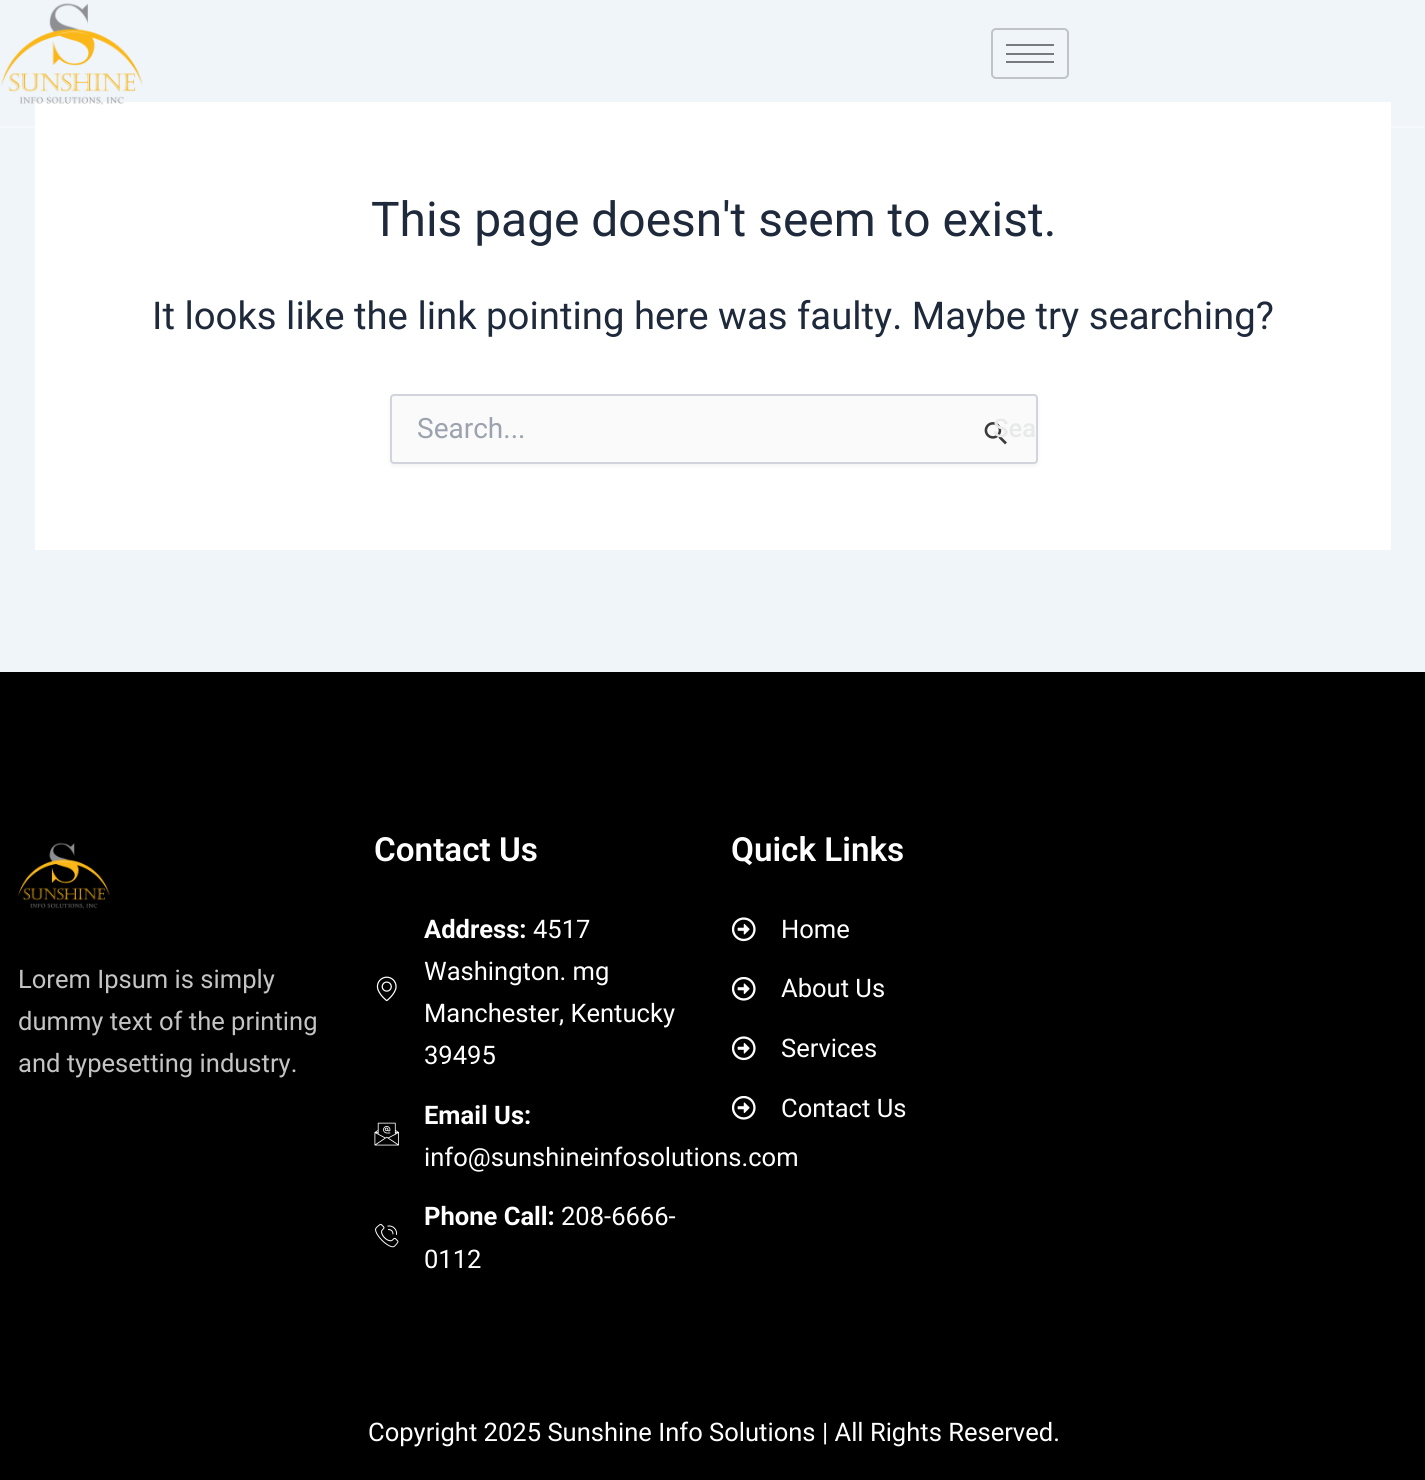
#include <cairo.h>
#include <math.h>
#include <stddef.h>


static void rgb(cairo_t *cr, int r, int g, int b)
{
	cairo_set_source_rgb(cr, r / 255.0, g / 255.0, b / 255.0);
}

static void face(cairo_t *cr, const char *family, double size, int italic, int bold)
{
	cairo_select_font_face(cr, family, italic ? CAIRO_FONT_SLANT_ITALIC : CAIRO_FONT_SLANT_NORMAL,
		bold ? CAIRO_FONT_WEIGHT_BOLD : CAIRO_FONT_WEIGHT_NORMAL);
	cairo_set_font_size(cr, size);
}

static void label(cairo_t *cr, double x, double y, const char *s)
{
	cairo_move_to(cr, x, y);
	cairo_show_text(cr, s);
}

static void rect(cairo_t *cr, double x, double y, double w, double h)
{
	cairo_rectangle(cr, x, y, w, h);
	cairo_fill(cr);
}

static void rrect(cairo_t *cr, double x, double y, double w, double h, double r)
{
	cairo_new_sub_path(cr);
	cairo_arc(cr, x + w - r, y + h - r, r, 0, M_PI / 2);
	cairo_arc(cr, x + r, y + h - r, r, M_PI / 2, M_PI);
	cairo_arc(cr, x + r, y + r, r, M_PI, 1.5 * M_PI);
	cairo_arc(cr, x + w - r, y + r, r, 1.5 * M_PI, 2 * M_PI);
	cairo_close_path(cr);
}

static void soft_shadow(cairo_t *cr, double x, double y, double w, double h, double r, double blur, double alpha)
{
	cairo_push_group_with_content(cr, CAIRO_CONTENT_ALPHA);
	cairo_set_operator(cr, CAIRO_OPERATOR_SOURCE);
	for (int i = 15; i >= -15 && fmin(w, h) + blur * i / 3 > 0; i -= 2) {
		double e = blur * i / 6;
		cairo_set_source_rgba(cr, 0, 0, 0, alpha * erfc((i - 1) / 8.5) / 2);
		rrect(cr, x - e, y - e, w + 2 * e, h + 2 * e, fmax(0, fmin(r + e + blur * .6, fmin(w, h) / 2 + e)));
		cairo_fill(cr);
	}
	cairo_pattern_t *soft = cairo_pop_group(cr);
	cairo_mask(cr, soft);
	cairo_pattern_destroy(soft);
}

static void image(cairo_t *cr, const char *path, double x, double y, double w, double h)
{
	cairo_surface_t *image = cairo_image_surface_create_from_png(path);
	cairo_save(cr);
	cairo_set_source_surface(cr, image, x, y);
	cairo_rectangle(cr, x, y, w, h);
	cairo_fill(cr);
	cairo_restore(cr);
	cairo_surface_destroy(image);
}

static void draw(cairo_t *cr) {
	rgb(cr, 240, 245, 250);
	cairo_paint(cr);
	rgb(cr, 246, 249, 252);
	rect(cr, 0, 126, 1425, 2);
	rgb(cr, 255, 255, 255);
	rect(cr, 35, 102, 1356, 448);
	image(cr, "image0.png", 1, 3, 142, 102);
	rrect(cr, 992, 29, 76, 49, 4);
	cairo_set_source_rgba(cr, 0, 0, 0, 0.2);
	cairo_stroke(cr);
	rgb(cr, 120, 123, 125);
	rect(cr, 1006, 44, 48, 2);
	rect(cr, 1006, 53, 48, 2);
	rect(cr, 1006, 61, 48, 2);
	face(cr, "Roboto", 47.9, 0, 0);
	rgb(cr, 30, 41, 59);
	label(cr, 371, 236, "This page doesn't seem to exist.");
	face(cr, "Roboto", 38.3, 0, 0);
	label(cr, 152, 329, "It looks like the link pointing here was faulty. Maybe try searching?");
	rgb(cr, 0, 0, 0);
	soft_shadow(cr, 390, 396, 648, 70, 4, 2, 0.05);
	rgb(cr, 250, 250, 250);
	rrect(cr, 391, 395, 646, 68, 3);
	cairo_fill_preserve(cr);
	rgb(cr, 209, 213, 219);
	cairo_stroke(cr);
	face(cr, "Roboto", 28, 0, 0);
	rgb(cr, 156, 163, 175);
	label(cr, 417, 438, "Search...");
	image(cr, "image1.png", 984, 422, 23, 23);
	face(cr, "Roboto Medium", 25.55, 0, 0);
	rgb(cr, 232, 233, 233);
	label(cr, 993, 437, "Sea");
	rgb(cr, 0, 0, 0);
	rect(cr, 0, 672, 1425, 808);
	image(cr, "image2.png", 18, 842, 92, 67);
	face(cr, "Roboto", 25.55, 0, 0);
	rgb(cr, 196, 196, 196);
	label(cr, 18, 988, "Lorem Ipsum is simply");
	label(cr, 18, 1030, "dummy text of the printing");
	label(cr, 18, 1072, "and typesetting industry.");
	face(cr, "Roboto SemiBold", 33.25, 0, 0);
	rgb(cr, 255, 255, 255);
	label(cr, 374, 861, "Contact Us");
	image(cr, "image3.png", 376, 976, 21, 26);
	face(cr, "Roboto", 25.55, 0, 1);
	label(cr, 424, 938, "Address:");
	face(cr, "Roboto", 25.55, 0, 0);
	label(cr, 533, 938, "4517");
	label(cr, 424, 980, "Washington. mg");
	label(cr, 424, 1022, "Manchester, Kentucky");
	label(cr, 424, 1064, "39495");
	image(cr, "image4.png", 374, 1122, 25, 24);
	face(cr, "Roboto", 25.55, 0, 1);
	label(cr, 424, 1124, "Email Us:");
	face(cr, "Roboto", 25.55, 0, 0);
	label(cr, 424, 1166, "info@sunshineinfosolutions.com");
	image(cr, "image5.png", 375, 1223, 24, 25);
	face(cr, "Roboto", 25.55, 0, 1);
	label(cr, 424, 1225, "Phone Call:");
	face(cr, "Roboto", 25.55, 0, 0);
	label(cr, 561, 1225, "208-6666-");
	label(cr, 424, 1268, "0112");
	face(cr, "Roboto SemiBold", 33.25, 0, 0);
	label(cr, 731, 861, "Quick Links");
	image(cr, "image6.png", 732, 917, 24, 25);
	face(cr, "Roboto", 25.55, 0, 0);
	label(cr, 781, 938, "Home");
	image(cr, "image7.png", 732, 977, 24, 24);
	label(cr, 781, 997, "About Us");
	image(cr, "image6.png", 732, 1036, 24, 25);
	label(cr, 781, 1057, "Services");
	image(cr, "image7.png", 732, 1096, 24, 24);
	label(cr, 781, 1117, "Contact Us");
	label(cr, 368, 1441, "Copyright 2025 Sunshine Info Solutions | All Rights Reserved.");
}

int main(void) {
	cairo_surface_t *surface = cairo_image_surface_create(CAIRO_FORMAT_RGB24, 1425, 1480);
	cairo_t *cr = cairo_create(surface);
	cairo_font_options_t *options = cairo_font_options_create();
	cairo_font_options_set_hint_metrics(options, CAIRO_HINT_METRICS_OFF);
	cairo_font_options_set_hint_style(options, CAIRO_HINT_STYLE_NONE);
	cairo_set_font_options(cr, options);
	cairo_set_miter_limit(cr, 4);
	draw(cr);
	cairo_surface_write_to_png(surface, "render.png");
	cairo_font_options_destroy(options);
	cairo_destroy(cr);
	cairo_surface_destroy(surface);
	return 0;
}
